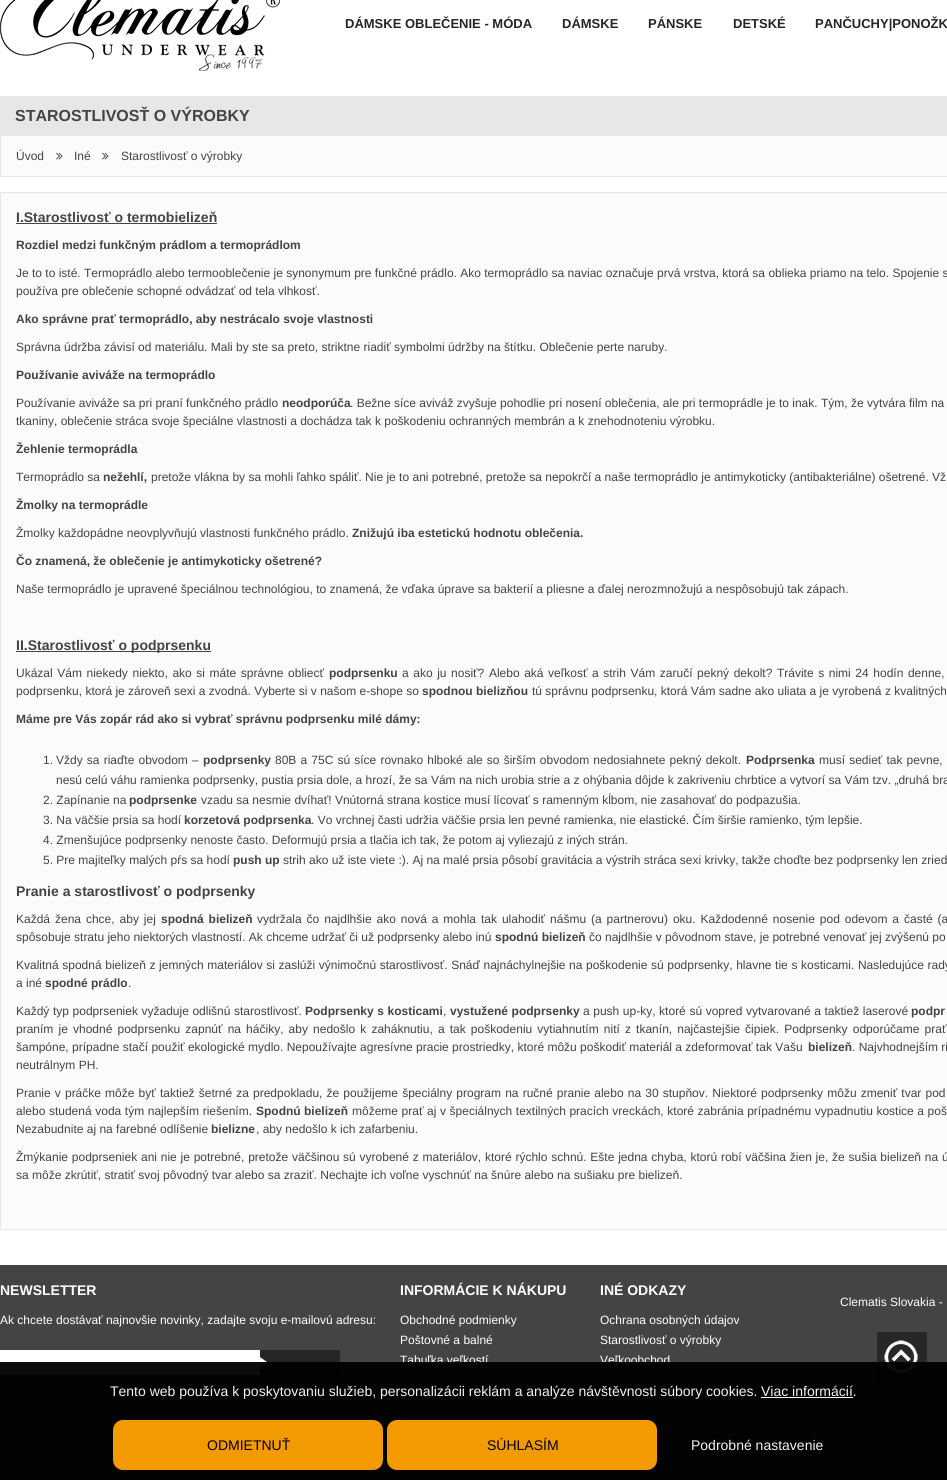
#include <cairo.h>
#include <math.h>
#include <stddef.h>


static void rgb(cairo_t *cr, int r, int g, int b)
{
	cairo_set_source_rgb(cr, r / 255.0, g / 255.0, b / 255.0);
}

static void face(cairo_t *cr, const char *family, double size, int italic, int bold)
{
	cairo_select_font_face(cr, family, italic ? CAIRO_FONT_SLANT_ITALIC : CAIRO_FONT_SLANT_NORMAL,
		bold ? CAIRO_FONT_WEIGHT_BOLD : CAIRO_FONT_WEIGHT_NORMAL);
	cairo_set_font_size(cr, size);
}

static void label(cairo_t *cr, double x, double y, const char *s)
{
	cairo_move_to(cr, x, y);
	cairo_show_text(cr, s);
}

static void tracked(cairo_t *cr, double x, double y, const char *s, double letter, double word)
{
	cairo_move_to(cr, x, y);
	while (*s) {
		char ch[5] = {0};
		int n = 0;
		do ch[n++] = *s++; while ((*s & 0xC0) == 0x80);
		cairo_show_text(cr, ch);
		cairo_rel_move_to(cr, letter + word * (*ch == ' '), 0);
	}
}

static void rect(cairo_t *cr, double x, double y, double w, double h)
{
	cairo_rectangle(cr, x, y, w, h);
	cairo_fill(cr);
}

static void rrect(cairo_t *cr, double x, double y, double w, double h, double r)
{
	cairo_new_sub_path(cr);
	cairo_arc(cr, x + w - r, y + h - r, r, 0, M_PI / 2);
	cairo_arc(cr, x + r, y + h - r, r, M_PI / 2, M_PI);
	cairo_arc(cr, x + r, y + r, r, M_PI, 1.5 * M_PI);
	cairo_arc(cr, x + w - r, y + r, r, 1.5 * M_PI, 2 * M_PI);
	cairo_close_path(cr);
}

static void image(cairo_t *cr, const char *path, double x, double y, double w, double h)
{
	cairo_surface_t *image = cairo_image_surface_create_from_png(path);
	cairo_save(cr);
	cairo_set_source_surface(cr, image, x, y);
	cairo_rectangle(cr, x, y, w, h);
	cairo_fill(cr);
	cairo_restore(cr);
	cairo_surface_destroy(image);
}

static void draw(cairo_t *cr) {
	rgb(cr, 255, 255, 255);
	cairo_paint(cr);
	image(cr, "image0.png", 0, 0, 280, 71);
	face(cr, "Liberation Sans", 13, 0, 1);
	rgb(cr, 38, 38, 38);
	label(cr, 345, 28, "DÁMSKE OBLEČENIE - MÓDA");
	label(cr, 562, 28, "DÁMSKE");
	label(cr, 648, 28, "PÁNSKE");
	label(cr, 733, 28, "DETSKÉ");
	label(cr, 815, 28, "PANČUCHY|PONOŽK");
	rgb(cr, 231, 231, 231);
	rect(cr, 0, 96, 947, 40);
	face(cr, "Liberation Sans", 16, 0, 1);
	rgb(cr, 68, 68, 68);
	label(cr, 15, 121, "STAROSTLIVOSŤ O VÝROBKY");
	rgb(cr, 251, 251, 251);
	rect(cr, 1, 136, 946, 40);
	rgb(cr, 231, 231, 231);
	rect(cr, 0, 176, 947, 1);
	rect(cr, 0, 136, 1, 41);
	face(cr, "Liberation Sans", 12, 0, 0);
	rgb(cr, 68, 68, 68);
	label(cr, 16, 160, "Úvod");
	image(cr, "image1.png", 56, 152, 7, 8);
	label(cr, 74, 160, "Iné");
	image(cr, "image1.png", 102, 152, 7, 8);
	label(cr, 121, 160, "Starostlivosť o výrobky");
	rgb(cr, 251, 251, 251);
	cairo_rectangle(cr, 0.5, 192.5, 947, 1037);
	cairo_fill_preserve(cr);
	rgb(cr, 231, 231, 231);
	cairo_set_line_width(cr, 1);
	cairo_stroke(cr);
	face(cr, "Liberation Sans", 14, 0, 1);
	rgb(cr, 68, 68, 68);
	label(cr, 16, 222, "I.Starostlivosť o termobielizeň");
	rect(cr, 16, 223, 201, 1);
	face(cr, "Liberation Sans", 12, 0, 1);
	label(cr, 16, 249, "Rozdiel medzi funkčným prádlom a termoprádlom");
	face(cr, "Liberation Sans", 12, 0, 0);
	label(cr, 16, 277, "Je to to isté. Termoprádlo alebo termooblečenie je synonymum pre funkčné prádlo. Ako termoprádlo sa naviac označuje prvá vrstva, ktorá sa oblieka priamo na telo. Spojenie s");
	label(cr, 16, 295, "používa pre oblečenie schopné odvádzať od tela vlhkosť.");
	face(cr, "Liberation Sans", 12, 0, 1);
	label(cr, 16, 323, "Ako správne prať termoprádlo, aby nestrácalo svoje vlastnosti");
	face(cr, "Liberation Sans", 12, 0, 0);
	label(cr, 16, 351, "Správna údržba závisí od materiálu. Mali by ste sa preto, striktne riadiť symbolmi údržby na štítku. Oblečenie perte naruby.");
	face(cr, "Liberation Sans", 12, 0, 1);
	label(cr, 16, 379, "Používanie aviváže na termoprádlo");
	face(cr, "Liberation Sans", 12, 0, 0);
	label(cr, 16, 407, "Používanie aviváže sa pri praní funkčného prádlo");
	face(cr, "Liberation Sans", 12, 0, 1);
	label(cr, 282, 407, "neodporúča");
	face(cr, "Liberation Sans", 12, 0, 0);
	label(cr, 350, 407, ". Bežne síce aviváž zvyšuje pohodlie pri nosení oblečenia, ale pri termoprádle je to inak. Tým, že vytvára film na");
	label(cr, 16, 425, "tkaniny, oblečenie stráca svoje špeciálne vlastnosti a dochádza tak k poškodeniu ochranných membrán a k znehodnoteniu výrobku.");
	face(cr, "Liberation Sans", 12, 0, 1);
	label(cr, 16, 453, "Žehlenie termoprádla");
	face(cr, "Liberation Sans", 12, 0, 0);
	label(cr, 16, 481, "Termoprádlo sa");
	face(cr, "Liberation Sans", 12, 0, 1);
	label(cr, 103, 481, "nežehlí,");
	face(cr, "Liberation Sans", 12, 0, 0);
	label(cr, 151, 481, "pretože vlákna by sa mohli ľahko spáliť. Nie je to ani potrebné, pretože sa nepokrčí a naše termoprádlo je antimykoticky (antibakteriálne) ošetrené. Vž");
	face(cr, "Liberation Sans", 12, 0, 1);
	label(cr, 16, 509, "Žmolky na termoprádle");
	face(cr, "Liberation Sans", 12, 0, 0);
	label(cr, 16, 537, "Žmolky každopádne neovplyvňujú vlastnosti funkčného prádlo.");
	face(cr, "Liberation Sans", 12, 0, 1);
	label(cr, 352, 537, "Znižujú iba estetickú hodnotu oblečenia.");
	label(cr, 16, 565, "Čo znamená, že oblečenie je antimykoticky ošetrené?");
	face(cr, "Liberation Sans", 12, 0, 0);
	label(cr, 16, 593, "Naše termoprádlo je upravené špeciálnou technológiou, to znamená, že vďaka úprave sa bakterií a pliesne a ďalej nerozmnožujú a nespôsobujú tak zápach.");
	rect(cr, 16, 651, 195, 1);
	face(cr, "Liberation Sans", 14, 0, 1);
	label(cr, 16, 650, "II.Starostlivosť o podprsenku");
	face(cr, "Liberation Sans", 12, 0, 0);
	tracked(cr, 16, 677, "Ukázal Vám niekedy niekto, ako si máte správne obliecť", 0, 1.25);
	face(cr, "Liberation Sans", 12, 0, 1);
	label(cr, 329, 677, "podprsenku");
	face(cr, "Liberation Sans", 12, 0, 0);
	tracked(cr, 402, 677, "a ako ju nosiť? Alebo aká veľkosť a strih Vám zaručí pekný dekolt? Trávite s nimi 24 hodín denne,", 0, 1.25);
	label(cr, 16, 695, "podprsenku, ktorá je zároveň sexi a zvodná. Vyberte si v našom e-shope so");
	face(cr, "Liberation Sans", 12, 0, 1);
	label(cr, 422, 695, "spodnou bielizňou");
	face(cr, "Liberation Sans", 12, 0, 0);
	label(cr, 532, 695, "tú správnu podprsenku, ktorá Vám sadne ako uliata a je vyrobená z kvalitných");
	face(cr, "Liberation Sans", 12, 0, 1);
	label(cr, 16, 723, "Máme pre Vás zopár rád ako si vybrať správnu podprsenku milé dámy:");
	face(cr, "Liberation Sans", 12, 0, 0);
	label(cr, 43, 764, "1.");
	tracked(cr, 56, 764, "Vždy sa riaďte obvodom –", 0, 0.8);
	face(cr, "Liberation Sans", 12, 0, 1);
	label(cr, 203, 764, "podprsenky");
	face(cr, "Liberation Sans", 12, 0, 0);
	tracked(cr, 275, 764, "80B a 75C sú síce rovnako hlboké ale so širším obvodom nedosiahnete pekný dekolt.", 0, 0.8);
	face(cr, "Liberation Sans", 12, 0, 1);
	label(cr, 746, 764, "Podprsenka");
	face(cr, "Liberation Sans", 12, 0, 0);
	tracked(cr, 819, 764, "musí sedieť tak pevne,", 0, 0.8);
	label(cr, 56, 784, "nesú celú váhu ramienka podprsenky, pustia prsia dole, a hrozí, že sa Vám na nich urobia strie a z ohýbania dôjde k zakriveniu chrbtice a vytvorí sa Vám tzv. „druhá bra");
	label(cr, 43, 804, "2. Zapínanie na");
	face(cr, "Liberation Sans", 12, 0, 1);
	label(cr, 129, 804, "podprsenke");
	face(cr, "Liberation Sans", 12, 0, 0);
	label(cr, 201, 804, "vzadu sa nesmie dvíhať! Vnútorná strana kostice musí lícovať s ramenným kĺbom, nie zasahovať do podpazušia.");
	label(cr, 43, 824, "3. Na väčšie prsia sa hodí");
	face(cr, "Liberation Sans", 12, 0, 1);
	label(cr, 184, 824, "korzetová podprsenka");
	face(cr, "Liberation Sans", 12, 0, 0);
	label(cr, 311, 824, ". Vo vrchnej časti udržia väčšie prsia len pevné ramienka, nie elastické. Čím širšie ramienko, tým lepšie.");
	label(cr, 43, 844, "4. Zmenšujúce podprsenky nenoste často. Deformujú prsia a tlačia ich tak, že potom aj vyliezajú z iných strán.");
	label(cr, 43, 864, "5. Pre majiteľky malých pŕs sa hodí");
	face(cr, "Liberation Sans", 12, 0, 1);
	label(cr, 233, 864, "push up");
	face(cr, "Liberation Sans", 12, 0, 0);
	label(cr, 283, 864, "strih ako už iste viete :). Aj na malé prsia pôsobí gravitácia a výstrih stráca sexi krivky, takže choďte bez podprsenky len zried");
	face(cr, "Liberation Sans", 14, 0, 1);
	label(cr, 16, 896, "Pranie a starostlivosť o podprsenky");
	face(cr, "Liberation Sans", 12, 0, 0);
	tracked(cr, 16, 923, "Každá žena chce, aby jej", 0, 1.6);
	face(cr, "Liberation Sans", 12, 0, 1);
	tracked(cr, 161, 923, "spodná bielizeň", 0, 1.6);
	face(cr, "Liberation Sans", 12, 0, 0);
	tracked(cr, 257, 923, "vydržala čo najdlhšie ako nová a mohla tak ulahodiť nášmu (a partnerovu) oku. Každodenné nosenie pod odevom a časté (a", 0, 1.6);
	label(cr, 16, 941, "spôsobuje stratu jeho niektorých vlastností. Ak chceme udržať či už podprsenky alebo inú");
	face(cr, "Liberation Sans", 12, 0, 1);
	label(cr, 495, 941, "spodnú bielizeň");
	face(cr, "Liberation Sans", 12, 0, 0);
	label(cr, 589, 941, "čo najdlhšie v pôvodnom stave, je potrebné venovať jej zvýšenú po");
	tracked(cr, 16, 969, "Kvalitná spodná bielizeň z jemných materiálov si zaslúži výnimočnú starostlivosť. Snáď najnáchylnejšie na poškodenie sú podprsenky, hlavne tie s kosticami. Nasledujúce rady", 0, 0.25);
	label(cr, 16, 987, "a iné");
	face(cr, "Liberation Sans", 12, 0, 1);
	label(cr, 45, 987, "spodné prádlo");
	face(cr, "Liberation Sans", 12, 0, 0);
	label(cr, 128, 987, ".");
	tracked(cr, 16, 1015, "Každý typ podprseniek vyžaduje odlišnú starostlivosť.", 0, 0.25);
	face(cr, "Liberation Sans", 12, 0, 1);
	tracked(cr, 305, 1015, "Podprsenky s kosticami", 0, 0.25);
	face(cr, "Liberation Sans", 12, 0, 0);
	label(cr, 443, 1015, ",");
	face(cr, "Liberation Sans", 12, 0, 1);
	tracked(cr, 450, 1015, "vystužené podprsenky", 0, 0.25);
	face(cr, "Liberation Sans", 12, 0, 0);
	tracked(cr, 583, 1015, "a push up-ky, ktoré sú vopred vytvarované a taktiež laserové", 0, 0.25);
	face(cr, "Liberation Sans", 12, 0, 1);
	label(cr, 911, 1015, "podpr");
	face(cr, "Liberation Sans", 12, 0, 0);
	tracked(cr, 16, 1033, "praním je vhodné podprsenku zapnúť na háčiky, aby nedošlo k zaháknutiu, a tak poškodeniu vytiahnutím nití z tkanín, najčastejšie čipiek. Podprsenky odporúčame prať", 0, 1.8);
	label(cr, 16, 1051, "šampóne, prípadne stačí použiť ekologické mydlo. Nepoužívajte agresívne pracie prostriedky, ktoré môžu poškodiť materiál a zdeformovať tak Vašu");
	face(cr, "Liberation Sans", 12, 0, 1);
	label(cr, 808, 1051, "bielizeň");
	face(cr, "Liberation Sans", 12, 0, 0);
	label(cr, 852, 1051, ". Najvhodnejším ri");
	label(cr, 16, 1069, "neutrálnym PH.");
	tracked(cr, 16, 1097, "Pranie v práčke môže byť taktiež šetrné za predpokladu, že použijeme špeciálny program na ručné pranie alebo na 30 stupňov. Niektoré podprsenky môžu zmeniť tvar pod", 0, 0.8);
	tracked(cr, 16, 1115, "alebo studená voda tým najlepším riešením.", 0, 0.25);
	face(cr, "Liberation Sans", 12, 0, 1);
	label(cr, 256, 1115, "Spodnú bielizeň");
	face(cr, "Liberation Sans", 12, 0, 0);
	tracked(cr, 352, 1115, "môžeme prať aj v špeciálnych textilných pracích vreckách, ktoré zabránia prípadnému vypadnutiu kostice a poš", 0, 0.25);
	label(cr, 16, 1133, "Nezabudnite aj na farebné odlíšenie");
	face(cr, "Liberation Sans", 12, 0, 1);
	label(cr, 211, 1133, "bielizne");
	face(cr, "Liberation Sans", 12, 0, 0);
	label(cr, 256, 1133, ", aby nedošlo k ich zafarbeniu.");
	tracked(cr, 16, 1161, "Žmýkanie podprseniek ani nie je potrebné, pretože väčšinou sú vyrobené z materiálov, ktoré rýchlo schnú. Ešte jedna chyba, ktorú robí väčšina žien je, že sušia bielizeň na ú", 0, 0.45);
	label(cr, 16, 1179, "sa môže zkrútiť, stratiť svoj pôvodný tvar alebo sa zraziť. Nechajte ich voľne vyschnúť na šnúre alebo na sušiaku pre bielizeň.");
	rect(cr, 0, 1265, 947, 160);
	face(cr, "Liberation Sans", 14, 0, 1);
	rgb(cr, 255, 255, 255);
	label(cr, 0, 1295, "NEWSLETTER");
	face(cr, "Liberation Sans", 12, 0, 0);
	label(cr, 0, 1324, "Ak chcete dostávať najnovšie novinky, zadajte svoju e-mailovú adresu:");
	rect(cr, 0, 1350, 260, 25);
	rgb(cr, 38, 38, 38);
	rect(cr, 260, 1350, 80, 24);
	image(cr, "image2.png", 260, 1357, 7, 10);
	face(cr, "Liberation Sans", 14, 0, 1);
	rgb(cr, 255, 255, 255);
	label(cr, 400, 1295, "INFORMÁCIE K NÁKUPU");
	face(cr, "Liberation Sans", 12, 0, 0);
	label(cr, 400, 1324, "Obchodné podmienky");
	label(cr, 400, 1344, "Poštovné a balné");
	label(cr, 400, 1364, "Tabuľka veľkostí");
	face(cr, "Liberation Sans", 14, 0, 1);
	label(cr, 600, 1295, "INÉ ODKAZY");
	face(cr, "Liberation Sans", 12, 0, 0);
	label(cr, 600, 1324, "Ochrana osobných údajov");
	label(cr, 600, 1344, "Starostlivosť o výrobky");
	label(cr, 600, 1364, "Veľkoobchod");
	label(cr, 840, 1306, "Clematis Slovakia -");
	rgb(cr, 39, 39, 39);
	rect(cr, 877, 1332, 50, 50);
	image(cr, "image3.png", 884, 1340, 34, 34);
	rgb(cr, 38, 38, 38);
	rect(cr, 0, 1425, 947, 55);
	cairo_set_source_rgba(cr, 0, 0, 0, 0.95);
	rect(cr, 0, 1362, 947, 118);
	face(cr, "Liberation Sans", 14, 0, 0);
	rgb(cr, 242, 242, 242);
	label(cr, 110, 1396, "Tento web používa k poskytovaniu služieb, personalizácii reklám a analýze návštěvnosti súbory cookies.");
	label(cr, 761, 1396, "Viac informácií.");
	rgb(cr, 246, 246, 246);
	rect(cr, 761, 1397, 92, 1);
	rgb(cr, 242, 154, 0);
	rrect(cr, 113, 1420, 270, 50, 10);
	cairo_fill(cr);
	rgb(cr, 2, 2, 2);
	label(cr, 207, 1450, "ODMIETNUŤ");
	cairo_set_source_rgba(cr, 1, 0.635, 0, 0.95);
	rrect(cr, 387, 1420, 270, 50, 10);
	cairo_fill(cr);
	rgb(cr, 2, 2, 2);
	label(cr, 487, 1450, "SÚHLASÍM");
	rgb(cr, 242, 242, 242);
	label(cr, 691, 1450, "Podrobné nastavenie");
}

int main(void) {
	cairo_surface_t *surface = cairo_image_surface_create(CAIRO_FORMAT_RGB24, 947, 1480);
	cairo_t *cr = cairo_create(surface);
	cairo_font_options_t *options = cairo_font_options_create();
	cairo_font_options_set_hint_metrics(options, CAIRO_HINT_METRICS_OFF);
	cairo_font_options_set_hint_style(options, CAIRO_HINT_STYLE_NONE);
	cairo_set_font_options(cr, options);
	cairo_set_miter_limit(cr, 4);
	draw(cr);
	cairo_surface_write_to_png(surface, "render.png");
	cairo_font_options_destroy(options);
	cairo_destroy(cr);
	cairo_surface_destroy(surface);
	return 0;
}
